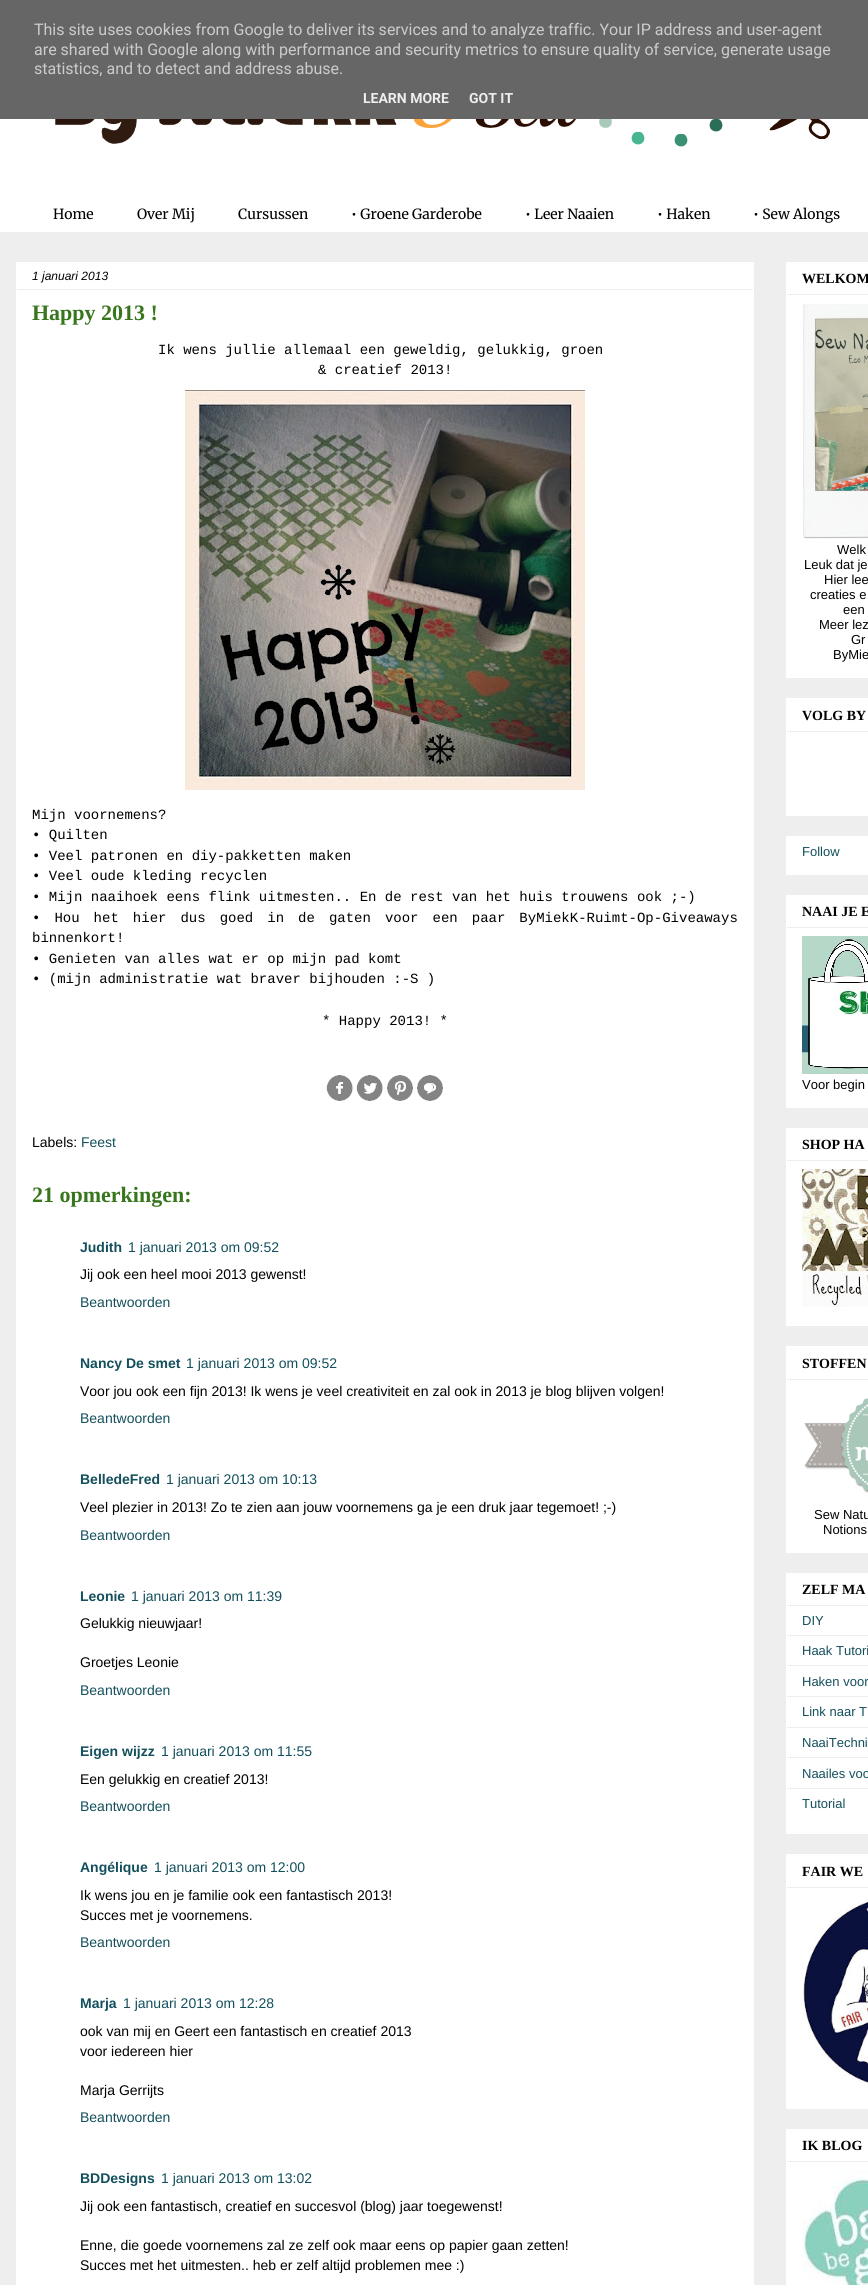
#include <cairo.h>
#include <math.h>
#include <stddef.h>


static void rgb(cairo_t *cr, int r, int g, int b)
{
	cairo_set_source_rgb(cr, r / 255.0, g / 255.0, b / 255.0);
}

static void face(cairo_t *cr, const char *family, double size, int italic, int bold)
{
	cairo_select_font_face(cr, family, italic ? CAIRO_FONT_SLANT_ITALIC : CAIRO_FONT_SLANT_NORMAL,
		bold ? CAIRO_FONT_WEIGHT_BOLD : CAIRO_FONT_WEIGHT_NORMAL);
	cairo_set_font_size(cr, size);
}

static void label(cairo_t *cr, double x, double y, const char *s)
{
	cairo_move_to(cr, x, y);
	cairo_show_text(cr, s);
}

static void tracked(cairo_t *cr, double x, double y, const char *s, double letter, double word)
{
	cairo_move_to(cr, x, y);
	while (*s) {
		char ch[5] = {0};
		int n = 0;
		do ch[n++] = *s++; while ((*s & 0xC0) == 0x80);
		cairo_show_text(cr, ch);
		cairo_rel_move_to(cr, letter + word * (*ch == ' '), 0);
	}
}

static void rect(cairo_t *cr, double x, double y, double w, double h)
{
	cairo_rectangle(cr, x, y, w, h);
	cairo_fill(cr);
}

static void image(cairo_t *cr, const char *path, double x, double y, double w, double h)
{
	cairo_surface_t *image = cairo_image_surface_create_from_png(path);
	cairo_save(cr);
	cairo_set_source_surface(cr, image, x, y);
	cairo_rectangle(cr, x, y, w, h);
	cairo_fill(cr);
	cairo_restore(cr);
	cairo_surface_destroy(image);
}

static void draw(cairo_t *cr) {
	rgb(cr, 238, 238, 238);
	cairo_paint(cr);
	rgb(cr, 102, 102, 102);
	rect(cr, 0, 0, 868, 119);
	face(cr, "Roboto", 16, 0, 0);
	rgb(cr, 204, 204, 204);
	label(cr, 34, 35, "This site uses cookies from Google to deliver its services and to analyze traffic. Your IP address and user-agent");
	label(cr, 34, 55, "are shared with Google along with performance and security metrics to ensure quality of service, generate usage");
	label(cr, 34, 74, "statistics, and to detect and address abuse.");
	face(cr, "Roboto", 14, 0, 1);
	rgb(cr, 238, 238, 238);
	label(cr, 363, 103, "LEARN MORE");
	label(cr, 469, 103, "GOT IT");
	rgb(cr, 255, 255, 255);
	rect(cr, 0, 119, 868, 113);
	image(cr, "image0.png", 55, 119, 775, 28);
	face(cr, "Merriweather Light", 14, 0, 0);
	rgb(cr, 0, 0, 0);
	label(cr, 53, 219, "Home");
	label(cr, 137, 219, "Over Mij");
	label(cr, 238, 219, "Cursussen");
	label(cr, 351, 219, "• Groene Garderobe");
	label(cr, 525, 219, "• Leer Naaien");
	label(cr, 657, 219, "• Haken");
	label(cr, 753, 219, "• Sew Alongs");
	rgb(cr, 255, 255, 255);
	rect(cr, 16, 262, 738, 2023);
	rgb(cr, 238, 238, 238);
	rect(cr, 17, 289, 736, 1);
	face(cr, "Liberation Sans", 12, 1, 0);
	rgb(cr, 0, 0, 0);
	label(cr, 32, 280, "1 januari 2013");
	face(cr, "Liberation Serif", 22, 0, 1);
	rgb(cr, 56, 118, 29);
	label(cr, 32, 320, "Happy 2013 !");
	face(cr, "Liberation Mono", 14, 0, 0);
	rgb(cr, 0, 0, 0);
	label(cr, 158, 354, "Ik wens jullie allemaal een geweldig, gelukkig, groen");
	label(cr, 318, 374, "& creatief 2013!");
	image(cr, "image1.png", 185, 390, 400, 400);
	label(cr, 32, 819, "Mijn voornemens?");
	label(cr, 32, 839, "• Quilten");
	label(cr, 32, 860, "• Veel patronen en diy-pakketten maken");
	label(cr, 32, 880, "• Veel oude kleding recyclen");
	label(cr, 32, 901, "• Mijn naaihoek eens flink uitmesten.. En de rest van het huis trouwens ook ;-)");
	tracked(cr, 32, 922, "• Hou het hier dus goed in de gaten voor een paar ByMiekK-Ruimt-Op-Giveaways", 0, 5.6);
	label(cr, 32, 942, "binnenkort!");
	label(cr, 32, 963, "• Genieten van alles wat er op mijn pad komt");
	label(cr, 32, 983, "• (mijn administratie wat braver bijhouden :-S )");
	label(cr, 322, 1025, "* Happy 2013! *");
	image(cr, "image2.png", 326, 1075, 27, 26);
	image(cr, "image3.png", 356, 1075, 27, 26);
	image(cr, "image4.png", 387, 1075, 26, 26);
	image(cr, "image5.png", 417, 1075, 26, 26);
	face(cr, "Liberation Sans", 14, 0, 0);
	label(cr, 32, 1147, "Labels:");
	rgb(cr, 19, 79, 92);
	label(cr, 81, 1147, "Feest");
	face(cr, "Liberation Serif", 22, 0, 1);
	rgb(cr, 56, 118, 29);
	label(cr, 32, 1202, "21 opmerkingen:");
	face(cr, "Liberation Sans", 14, 0, 1);
	rgb(cr, 19, 79, 92);
	label(cr, 80, 1252, "Judith");
	face(cr, "Liberation Sans", 14, 0, 0);
	label(cr, 128, 1252, "1 januari 2013 om 09:52");
	rgb(cr, 0, 0, 0);
	label(cr, 80, 1279, "Jij ook een heel mooi 2013 gewenst!");
	rgb(cr, 19, 79, 92);
	label(cr, 80, 1307, "Beantwoorden");
	face(cr, "Liberation Sans", 14, 0, 1);
	label(cr, 80, 1368, "Nancy De smet");
	face(cr, "Liberation Sans", 14, 0, 0);
	label(cr, 186, 1368, "1 januari 2013 om 09:52");
	rgb(cr, 0, 0, 0);
	label(cr, 80, 1396, "Voor jou ook een fijn 2013! Ik wens je veel creativiteit en zal ook in 2013 je blog blijven volgen!");
	rgb(cr, 19, 79, 92);
	label(cr, 80, 1423, "Beantwoorden");
	face(cr, "Liberation Sans", 14, 0, 1);
	label(cr, 80, 1484, "BelledeFred");
	face(cr, "Liberation Sans", 14, 0, 0);
	label(cr, 166, 1484, "1 januari 2013 om 10:13");
	rgb(cr, 0, 0, 0);
	label(cr, 80, 1512, "Veel plezier in 2013! Zo te zien aan jouw voornemens ga je een druk jaar tegemoet! ;-)");
	rgb(cr, 19, 79, 92);
	label(cr, 80, 1540, "Beantwoorden");
	face(cr, "Liberation Sans", 14, 0, 1);
	label(cr, 80, 1601, "Leonie");
	face(cr, "Liberation Sans", 14, 0, 0);
	label(cr, 131, 1601, "1 januari 2013 om 11:39");
	rgb(cr, 0, 0, 0);
	label(cr, 80, 1628, "Gelukkig nieuwjaar!");
	label(cr, 80, 1667, "Groetjes Leonie");
	rgb(cr, 19, 79, 92);
	label(cr, 80, 1695, "Beantwoorden");
	face(cr, "Liberation Sans", 14, 0, 1);
	label(cr, 80, 1756, "Eigen wijzz");
	face(cr, "Liberation Sans", 14, 0, 0);
	label(cr, 161, 1756, "1 januari 2013 om 11:55");
	rgb(cr, 0, 0, 0);
	label(cr, 80, 1784, "Een gelukkig en creatief 2013!");
	rgb(cr, 19, 79, 92);
	label(cr, 80, 1811, "Beantwoorden");
	face(cr, "Liberation Sans", 14, 0, 1);
	label(cr, 80, 1872, "Angélique");
	face(cr, "Liberation Sans", 14, 0, 0);
	label(cr, 154, 1872, "1 januari 2013 om 12:00");
	rgb(cr, 0, 0, 0);
	label(cr, 80, 1900, "Ik wens jou en je familie ook een fantastisch 2013!");
	label(cr, 80, 1920, "Succes met je voornemens.");
	rgb(cr, 19, 79, 92);
	label(cr, 80, 1947, "Beantwoorden");
	face(cr, "Liberation Sans", 14, 0, 1);
	label(cr, 80, 2008, "Marja");
	face(cr, "Liberation Sans", 14, 0, 0);
	label(cr, 123, 2008, "1 januari 2013 om 12:28");
	rgb(cr, 0, 0, 0);
	label(cr, 80, 2036, "ook van mij en Geert een fantastisch en creatief 2013");
	label(cr, 80, 2056, "voor iedereen hier");
	label(cr, 80, 2095, "Marja Gerrijts");
	rgb(cr, 19, 79, 92);
	label(cr, 80, 2122, "Beantwoorden");
	face(cr, "Liberation Sans", 14, 0, 1);
	label(cr, 80, 2183, "BDDesigns");
	face(cr, "Liberation Sans", 14, 0, 0);
	label(cr, 161, 2183, "1 januari 2013 om 13:02");
	rgb(cr, 0, 0, 0);
	label(cr, 80, 2211, "Jij ook een fantastisch, creatief en succesvol (blog) jaar toegewenst!");
	label(cr, 80, 2250, "Enne, die goede voornemens zal ze zelf ook maar eens op papier gaan zetten!");
	label(cr, 80, 2270, "Succes met het uitmesten.. heb er zelf altijd problemen mee :)");
	rgb(cr, 255, 255, 255);
	rect(cr, 786, 262, 82, 416);
	rgb(cr, 238, 238, 238);
	rect(cr, 787, 294, 81, 1);
	face(cr, "Liberation Serif", 14, 0, 1);
	rgb(cr, 0, 0, 0);
	label(cr, 802, 283, "WELKOM");
	image(cr, "image6.png", 803, 304, 65, 235);
	face(cr, "Liberation Sans", 13, 0, 0);
	label(cr, 837, 554, "Welk");
	label(cr, 804, 569, "Leuk dat je");
	label(cr, 824, 584, "Hier lee");
	label(cr, 810, 599, "creaties e");
	label(cr, 843, 614, "een");
	label(cr, 819, 629, "Meer lez");
	label(cr, 851, 644, "Gr");
	label(cr, 833, 659, "ByMie");
	rgb(cr, 255, 255, 255);
	rect(cr, 786, 698, 82, 118);
	rgb(cr, 238, 238, 238);
	rect(cr, 787, 731, 81, 1);
	face(cr, "Liberation Serif", 14, 0, 1);
	rgb(cr, 0, 0, 0);
	label(cr, 802, 720, "VOLG BY");
	rgb(cr, 255, 255, 255);
	rect(cr, 786, 836, 82, 39);
	face(cr, "Liberation Sans", 13, 0, 0);
	rgb(cr, 19, 79, 92);
	label(cr, 802, 856, "Follow");
	rgb(cr, 255, 255, 255);
	rect(cr, 786, 895, 82, 213);
	rgb(cr, 238, 238, 238);
	rect(cr, 787, 927, 81, 1);
	face(cr, "Liberation Serif", 14, 0, 1);
	rgb(cr, 0, 0, 0);
	label(cr, 802, 916, "NAAI JE E");
	image(cr, "image7.png", 802, 936, 66, 138);
	face(cr, "Liberation Sans", 13, 0, 0);
	label(cr, 802, 1089, "Voor begin");
	rgb(cr, 255, 255, 255);
	rect(cr, 786, 1128, 82, 198);
	rgb(cr, 238, 238, 238);
	rect(cr, 787, 1160, 81, 1);
	face(cr, "Liberation Serif", 14, 0, 1);
	rgb(cr, 0, 0, 0);
	label(cr, 802, 1149, "SHOP HA");
	image(cr, "image8.png", 802, 1169, 66, 138);
	rgb(cr, 255, 255, 255);
	rect(cr, 786, 1346, 82, 207);
	rgb(cr, 238, 238, 238);
	rect(cr, 787, 1379, 81, 1);
	rgb(cr, 0, 0, 0);
	label(cr, 802, 1368, "STOFFEN");
	image(cr, "image9.png", 804, 1398, 64, 95);
	face(cr, "Liberation Sans", 13, 0, 0);
	label(cr, 814, 1519, "Sew Natu");
	label(cr, 823, 1534, "Notions");
	rgb(cr, 255, 255, 255);
	rect(cr, 786, 1573, 82, 261);
	rgb(cr, 238, 238, 238);
	rect(cr, 787, 1605, 81, 1);
	face(cr, "Liberation Serif", 14, 0, 1);
	rgb(cr, 0, 0, 0);
	label(cr, 802, 1594, "ZELF MA");
	rgb(cr, 238, 238, 238);
	rect(cr, 787, 1635, 81, 1);
	face(cr, "Liberation Sans", 13, 0, 0);
	rgb(cr, 19, 79, 92);
	label(cr, 802, 1625, "DIY");
	rgb(cr, 238, 238, 238);
	rect(cr, 787, 1665, 81, 1);
	rgb(cr, 19, 79, 92);
	label(cr, 802, 1655, "Haak Tutori");
	rgb(cr, 238, 238, 238);
	rect(cr, 787, 1696, 81, 1);
	rgb(cr, 19, 79, 92);
	label(cr, 802, 1686, "Haken voor");
	rgb(cr, 238, 238, 238);
	rect(cr, 787, 1727, 81, 1);
	rgb(cr, 19, 79, 92);
	label(cr, 802, 1716, "Link naar T");
	rgb(cr, 238, 238, 238);
	rect(cr, 787, 1757, 81, 1);
	rgb(cr, 19, 79, 92);
	label(cr, 802, 1747, "NaaiTechni");
	rgb(cr, 238, 238, 238);
	rect(cr, 787, 1788, 81, 1);
	rgb(cr, 19, 79, 92);
	label(cr, 802, 1778, "Naailes voo");
	label(cr, 802, 1808, "Tutorial");
	rgb(cr, 255, 255, 255);
	rect(cr, 786, 1854, 82, 255);
	rgb(cr, 238, 238, 238);
	rect(cr, 787, 1887, 81, 1);
	face(cr, "Liberation Serif", 14, 0, 1);
	rgb(cr, 0, 0, 0);
	label(cr, 802, 1876, "FAIR WE");
	image(cr, "image10.png", 802, 1897, 66, 188);
	rgb(cr, 255, 255, 255);
	rect(cr, 786, 2129, 82, 156);
	rgb(cr, 238, 238, 238);
	rect(cr, 787, 2161, 81, 1);
	rgb(cr, 0, 0, 0);
	label(cr, 802, 2150, "IK BLOG");
	image(cr, "image11.png", 802, 2170, 66, 115);
}

int main(void) {
	cairo_surface_t *surface = cairo_image_surface_create(CAIRO_FORMAT_RGB24, 868, 2285);
	cairo_t *cr = cairo_create(surface);
	cairo_font_options_t *options = cairo_font_options_create();
	cairo_font_options_set_hint_metrics(options, CAIRO_HINT_METRICS_OFF);
	cairo_font_options_set_hint_style(options, CAIRO_HINT_STYLE_NONE);
	cairo_set_font_options(cr, options);
	cairo_set_miter_limit(cr, 4);
	draw(cr);
	cairo_surface_write_to_png(surface, "render.png");
	cairo_font_options_destroy(options);
	cairo_destroy(cr);
	cairo_surface_destroy(surface);
	return 0;
}
